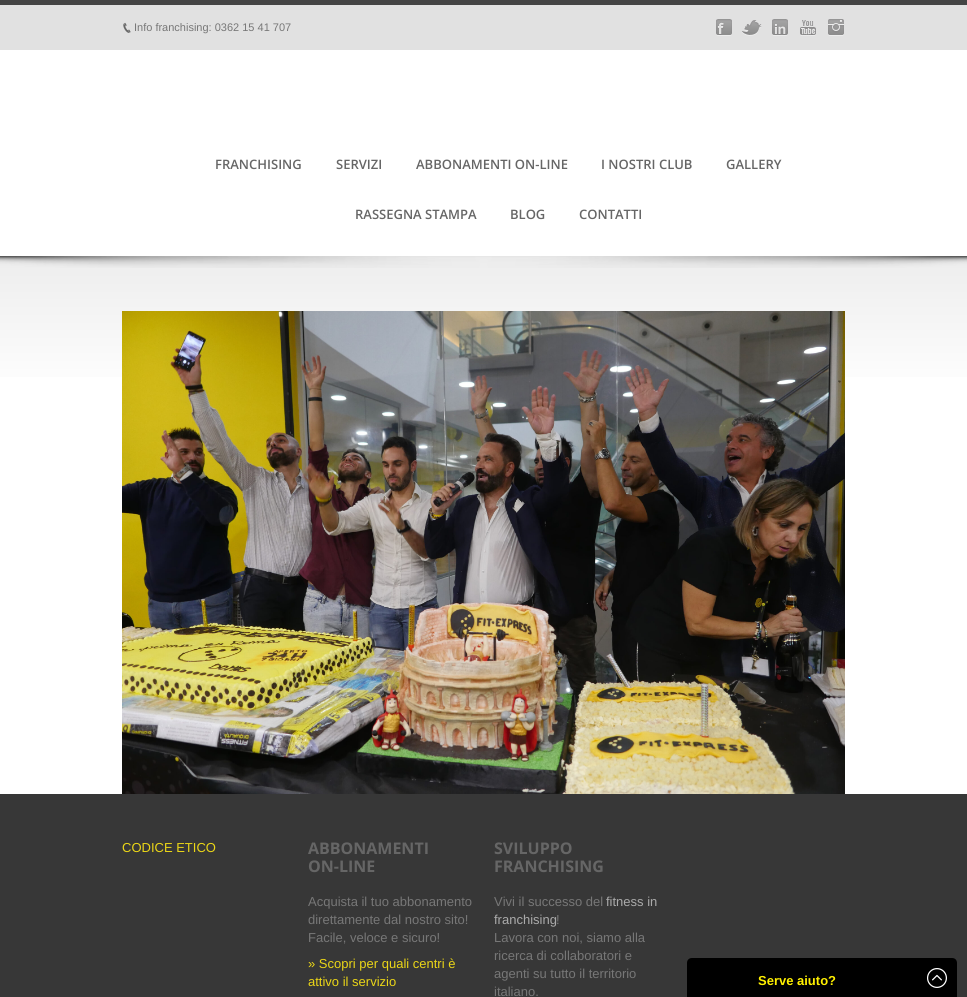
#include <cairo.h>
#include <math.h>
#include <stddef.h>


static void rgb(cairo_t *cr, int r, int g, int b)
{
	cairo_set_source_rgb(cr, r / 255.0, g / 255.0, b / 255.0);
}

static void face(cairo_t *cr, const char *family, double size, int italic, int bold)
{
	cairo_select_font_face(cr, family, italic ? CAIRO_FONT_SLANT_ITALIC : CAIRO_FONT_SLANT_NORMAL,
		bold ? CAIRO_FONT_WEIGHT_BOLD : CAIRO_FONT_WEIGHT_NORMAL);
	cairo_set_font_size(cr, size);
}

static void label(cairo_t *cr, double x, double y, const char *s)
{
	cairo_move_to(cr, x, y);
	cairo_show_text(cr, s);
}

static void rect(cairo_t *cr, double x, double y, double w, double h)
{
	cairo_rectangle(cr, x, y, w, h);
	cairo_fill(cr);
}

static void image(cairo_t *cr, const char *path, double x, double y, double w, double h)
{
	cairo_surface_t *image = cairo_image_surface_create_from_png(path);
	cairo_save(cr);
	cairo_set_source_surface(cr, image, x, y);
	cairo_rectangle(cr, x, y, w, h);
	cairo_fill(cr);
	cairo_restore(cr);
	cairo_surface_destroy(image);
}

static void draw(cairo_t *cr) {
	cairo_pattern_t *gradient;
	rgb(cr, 255, 255, 255);
	cairo_paint(cr);
	rgb(cr, 68, 68, 68);
	rect(cr, 0, 0, 967, 5);
	rgb(cr, 225, 225, 225);
	rect(cr, 0, 5, 967, 45);
	image(cr, "image0.png", 123, 22, 8, 11);
	face(cr, "Liberation Sans", 11, 0, 0);
	rgb(cr, 119, 119, 119);
	label(cr, 134, 31, "Info franchising: 0362 15 41 707");
	image(cr, "image1.png", 716, 19, 16, 17);
	image(cr, "image2.png", 742, 20, 20, 16);
	image(cr, "image3.png", 772, 19, 16, 17);
	image(cr, "image4.png", 800, 20, 16, 16);
	image(cr, "image5.png", 828, 19, 16, 17);
	face(cr, "Open Sans SemiBold", 13, 0, 0);
	rgb(cr, 102, 102, 102);
	label(cr, 215, 169, "FRANCHISING");
	label(cr, 336, 169, "SERVIZI");
	label(cr, 416, 169, "ABBONAMENTI ON-LINE");
	label(cr, 601, 169, "I NOSTRI CLUB");
	label(cr, 726, 169, "GALLERY");
	label(cr, 355, 219, "RASSEGNA STAMPA");
	label(cr, 510, 219, "BLOG");
	label(cr, 579, 219, "CONTATTI");
	gradient = cairo_pattern_create_linear(484, 256, 484, 396);
	cairo_pattern_add_color_stop_rgba(gradient, 0, 0.929, 0.929, 0.929, 1);
	cairo_pattern_add_color_stop_rgba(gradient, 1, 1, 1, 1, 1);
	cairo_set_source(cr, gradient);
	cairo_pattern_destroy(gradient);
	rect(cr, 0, 256, 967, 121);
	image(cr, "image6.png", 0, 256, 967, 12);
	image(cr, "image7.png", 122, 311, 723, 483);
	rgb(cr, 55, 55, 55);
	rect(cr, 0, 794, 967, 203);
	face(cr, "Liberation Sans", 13, 0, 0);
	rgb(cr, 235, 214, 23);
	label(cr, 122, 852, "CODICE ETICO");
	face(cr, "Open Sans", 16, 0, 1);
	rgb(cr, 102, 102, 102);
	label(cr, 308, 854, "ABBONAMENTI");
	label(cr, 308, 872, "ON-LINE");
	face(cr, "Liberation Sans", 13, 0, 0);
	rgb(cr, 119, 119, 119);
	label(cr, 308, 906, "Acquista il tuo abbonamento");
	label(cr, 308, 924, "direttamente dal nostro sito!");
	label(cr, 308, 942, "Facile, veloce e sicuro!");
	rgb(cr, 235, 214, 23);
	label(cr, 308, 968, "» Scopri per quali centri è");
	label(cr, 308, 986, "attivo il servizio");
	face(cr, "Open Sans", 16, 0, 1);
	rgb(cr, 102, 102, 102);
	label(cr, 494, 854, "SVILUPPO");
	label(cr, 494, 872, "FRANCHISING");
	face(cr, "Liberation Sans", 13, 0, 0);
	rgb(cr, 119, 119, 119);
	label(cr, 494, 906, "Vivi il successo del");
	rgb(cr, 171, 171, 171);
	label(cr, 606, 906, "fitness in");
	label(cr, 494, 924, "franchising");
	rgb(cr, 119, 119, 119);
	label(cr, 556, 924, "!");
	label(cr, 494, 942, "Lavora con noi, siamo alla");
	label(cr, 494, 960, "ricerca di collaboratori e");
	label(cr, 494, 978, "agenti su tutto il territorio");
	label(cr, 494, 996, "italiano.");
	rgb(cr, 0, 0, 0);
	cairo_new_path(cr);
	cairo_move_to(cr, 692, 958);
	cairo_line_to(cr, 952, 958);
	cairo_curve_to(cr, 955, 958, 957, 960, 957, 963);
	cairo_line_to(cr, 957, 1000);
	cairo_line_to(cr, 687, 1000);
	cairo_line_to(cr, 687, 963);
	cairo_curve_to(cr, 687, 960, 689, 958, 692, 958);
	cairo_close_path(cr);
	cairo_fill(cr);
	face(cr, "Liberation Sans", 13, 0, 1);
	rgb(cr, 255, 240, 0);
	label(cr, 758, 985, "Serve aiuto?");
	image(cr, "image8.png", 927, 968, 20, 20);
}

int main(void) {
	cairo_surface_t *surface = cairo_image_surface_create(CAIRO_FORMAT_RGB24, 967, 997);
	cairo_t *cr = cairo_create(surface);
	cairo_font_options_t *options = cairo_font_options_create();
	cairo_font_options_set_hint_metrics(options, CAIRO_HINT_METRICS_OFF);
	cairo_font_options_set_hint_style(options, CAIRO_HINT_STYLE_NONE);
	cairo_set_font_options(cr, options);
	cairo_set_miter_limit(cr, 4);
	draw(cr);
	cairo_surface_write_to_png(surface, "render.png");
	cairo_font_options_destroy(options);
	cairo_destroy(cr);
	cairo_surface_destroy(surface);
	return 0;
}
